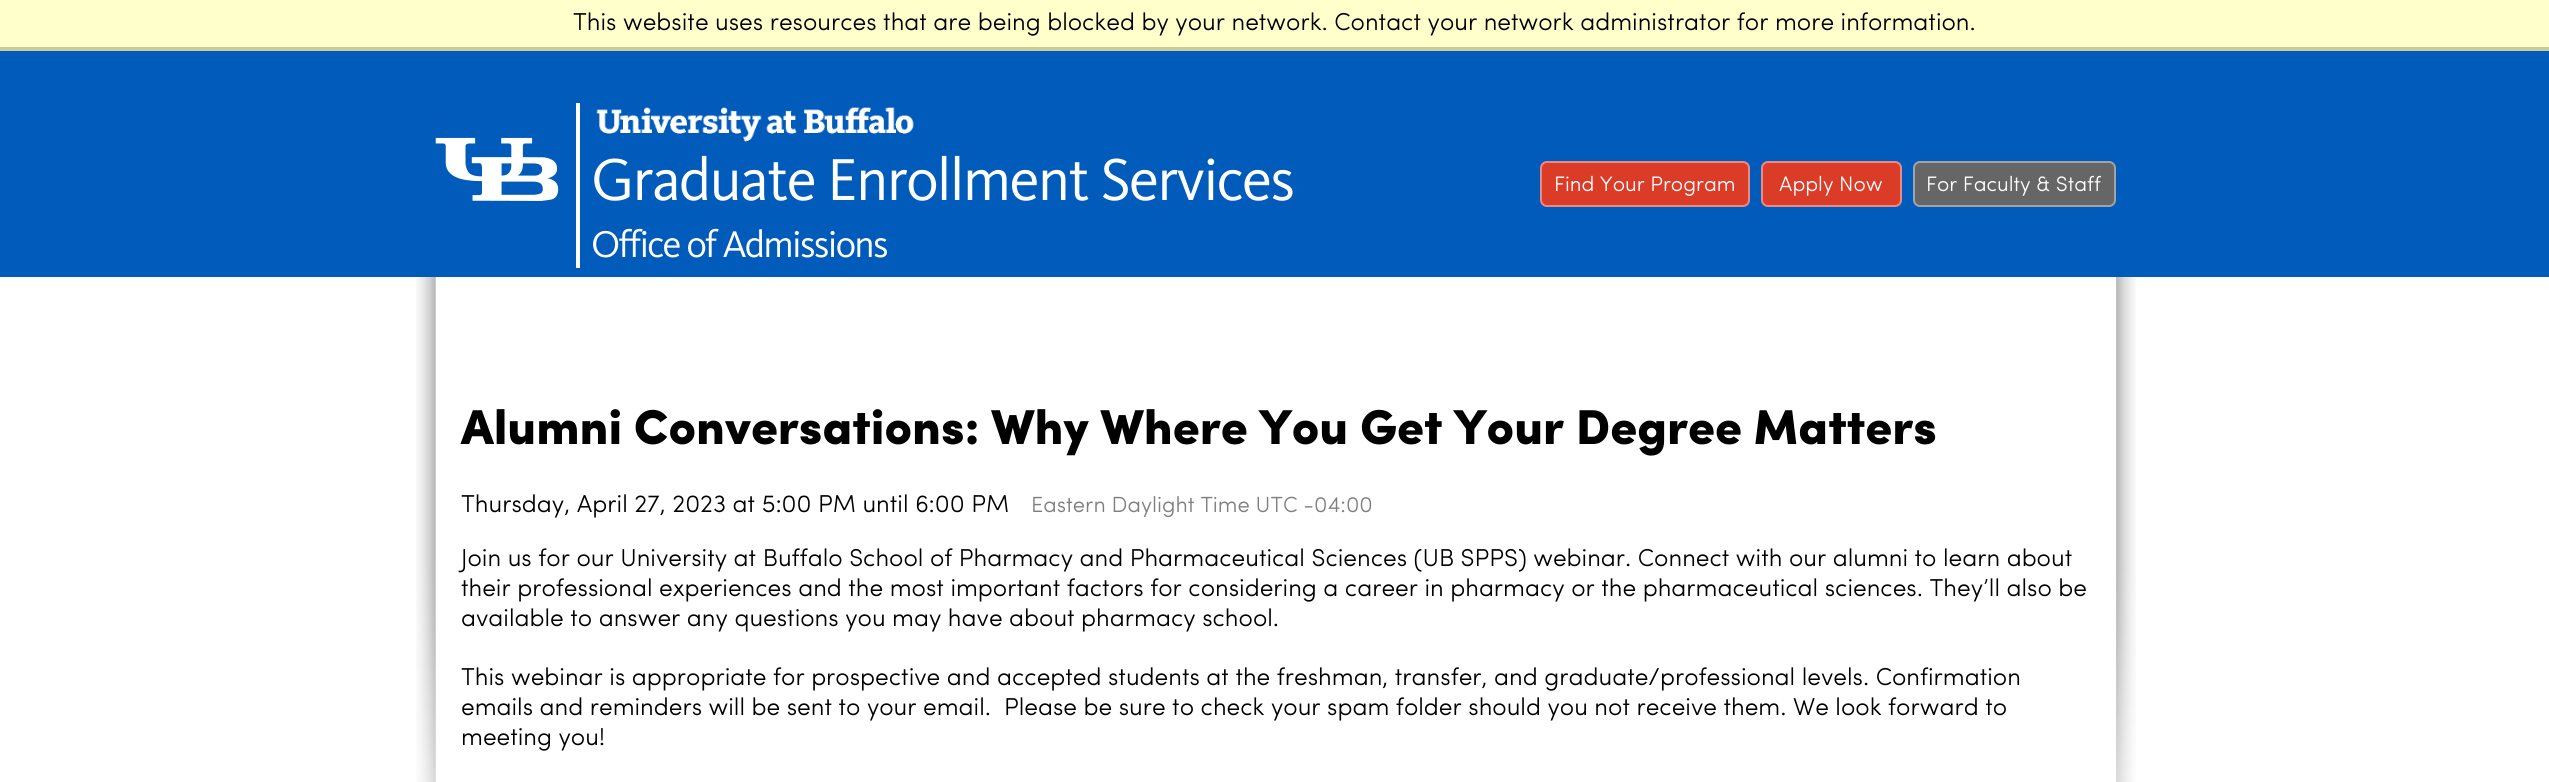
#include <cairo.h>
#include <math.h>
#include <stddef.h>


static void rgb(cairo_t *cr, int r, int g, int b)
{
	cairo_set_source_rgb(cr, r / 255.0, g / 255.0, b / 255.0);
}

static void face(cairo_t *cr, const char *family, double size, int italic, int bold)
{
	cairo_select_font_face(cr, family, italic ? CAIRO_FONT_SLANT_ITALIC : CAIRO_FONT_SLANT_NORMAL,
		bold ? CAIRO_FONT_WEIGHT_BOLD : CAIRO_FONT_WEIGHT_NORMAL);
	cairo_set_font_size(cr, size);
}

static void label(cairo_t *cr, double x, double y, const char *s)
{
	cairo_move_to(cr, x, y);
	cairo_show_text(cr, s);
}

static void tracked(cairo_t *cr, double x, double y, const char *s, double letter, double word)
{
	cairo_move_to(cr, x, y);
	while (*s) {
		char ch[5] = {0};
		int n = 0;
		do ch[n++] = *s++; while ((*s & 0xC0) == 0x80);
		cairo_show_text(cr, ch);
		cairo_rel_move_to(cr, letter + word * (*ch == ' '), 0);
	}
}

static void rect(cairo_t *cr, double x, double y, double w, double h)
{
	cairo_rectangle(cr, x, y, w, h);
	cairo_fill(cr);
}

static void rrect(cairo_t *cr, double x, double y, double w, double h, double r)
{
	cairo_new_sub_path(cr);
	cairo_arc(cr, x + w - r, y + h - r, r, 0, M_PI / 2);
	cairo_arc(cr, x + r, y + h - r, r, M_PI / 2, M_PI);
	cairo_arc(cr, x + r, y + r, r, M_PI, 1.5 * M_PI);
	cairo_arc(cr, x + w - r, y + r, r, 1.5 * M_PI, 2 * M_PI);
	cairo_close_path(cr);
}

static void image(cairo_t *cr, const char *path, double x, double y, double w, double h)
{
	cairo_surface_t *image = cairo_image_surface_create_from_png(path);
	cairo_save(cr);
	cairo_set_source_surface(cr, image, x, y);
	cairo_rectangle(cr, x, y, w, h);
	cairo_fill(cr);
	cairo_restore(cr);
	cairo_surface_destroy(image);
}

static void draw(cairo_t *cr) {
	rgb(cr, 255, 255, 255);
	cairo_paint(cr);
	rgb(cr, 255, 255, 204);
	rect(cr, 0, 0, 2549, 47);
	rgb(cr, 204, 204, 153);
	rect(cr, 0, 47, 2549, 4);
	face(cr, "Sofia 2", 24.5, 0, 0);
	rgb(cr, 0, 0, 0);
	label(cr, 573, 30, "This website uses resources that are being blocked by your network. Contact your network administrator for more information.");
	image(cr, "image0.png", 416, 277, 1720, 505);
	rgb(cr, 0, 91, 187);
	rect(cr, 0, 51, 2549, 226);
	rgb(cr, 255, 255, 255);
	rect(cr, 576, 103, 4, 165);
	image(cr, "image1.png", 596, 107, 318, 35);
	image(cr, "image2.png", 435, 137, 124, 64);
	face(cr, "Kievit", 61.25, 0, 0);
	tracked(cr, 591, 200, "Graduate Enrollment Services", -1.75, 0);
	face(cr, "Kievit", 38.5, 0, 0);
	tracked(cr, 591, 257, "Office of Admissions", -1.75, 0);
	rgb(cr, 218, 60, 40);
	rrect(cr, 1541, 162, 208, 44, 6);
	cairo_fill_preserve(cr);
	rgb(cr, 233, 138, 132);
	cairo_stroke(cr);
	face(cr, "Sofia 2", 21, 0, 0);
	rgb(cr, 255, 255, 255);
	label(cr, 1554, 191, "Find Your Program");
	rgb(cr, 218, 60, 40);
	rrect(cr, 1762, 162, 139, 44, 6);
	cairo_fill_preserve(cr);
	rgb(cr, 233, 138, 132);
	cairo_stroke(cr);
	rgb(cr, 255, 255, 255);
	label(cr, 1779, 191, "Apply Now");
	rgb(cr, 102, 102, 102);
	rrect(cr, 1914, 162, 201, 44, 6);
	cairo_fill_preserve(cr);
	rgb(cr, 163, 163, 163);
	cairo_stroke(cr);
	rgb(cr, 255, 255, 255);
	label(cr, 1926, 191, "For Faculty & Staff");
	rect(cr, 436, 277, 1680, 505);
	face(cr, "Sofia", 49, 0, 0);
	rgb(cr, 0, 0, 0);
	label(cr, 461, 444, "Alumni Conversations: Why Where You Get Your Degree Matters");
	face(cr, "Sofia 2", 24.5, 0, 0);
	label(cr, 461, 512, "Thursday, April 27, 2023 at 5:00 PM until 6:00 PM");
	face(cr, "Sofia 2", 22, 0, 0);
	rgb(cr, 128, 128, 128);
	label(cr, 1031, 512, "Eastern Daylight Time UTC -04:00");
	face(cr, "Sofia 2", 24.5, 0, 0);
	rgb(cr, 0, 0, 0);
	label(cr, 461, 566, "Join us for our University at Buffalo School of Pharmacy and Pharmaceutical Sciences (UB SPPS) webinar. Connect with our alumni to learn about");
	label(cr, 461, 596, "their professional experiences and the most important factors for considering a career in pharmacy or the pharmaceutical sciences. They’ll also be");
	label(cr, 461, 626, "available to answer any questions you may have about pharmacy school.");
	label(cr, 461, 685, "This webinar is appropriate for prospective and accepted students at the freshman, transfer, and graduate/professional levels. Confirmation");
	label(cr, 461, 715, "emails and reminders will be sent to your email.  Please be sure to check your spam folder should you not receive them. We look forward to");
	label(cr, 461, 745, "meeting you!");
}

int main(void) {
	cairo_surface_t *surface = cairo_image_surface_create(CAIRO_FORMAT_RGB24, 2549, 782);
	cairo_t *cr = cairo_create(surface);
	cairo_font_options_t *options = cairo_font_options_create();
	cairo_font_options_set_hint_metrics(options, CAIRO_HINT_METRICS_OFF);
	cairo_font_options_set_hint_style(options, CAIRO_HINT_STYLE_NONE);
	cairo_set_font_options(cr, options);
	cairo_set_miter_limit(cr, 4);
	draw(cr);
	cairo_surface_write_to_png(surface, "render.png");
	cairo_font_options_destroy(options);
	cairo_destroy(cr);
	cairo_surface_destroy(surface);
	return 0;
}
